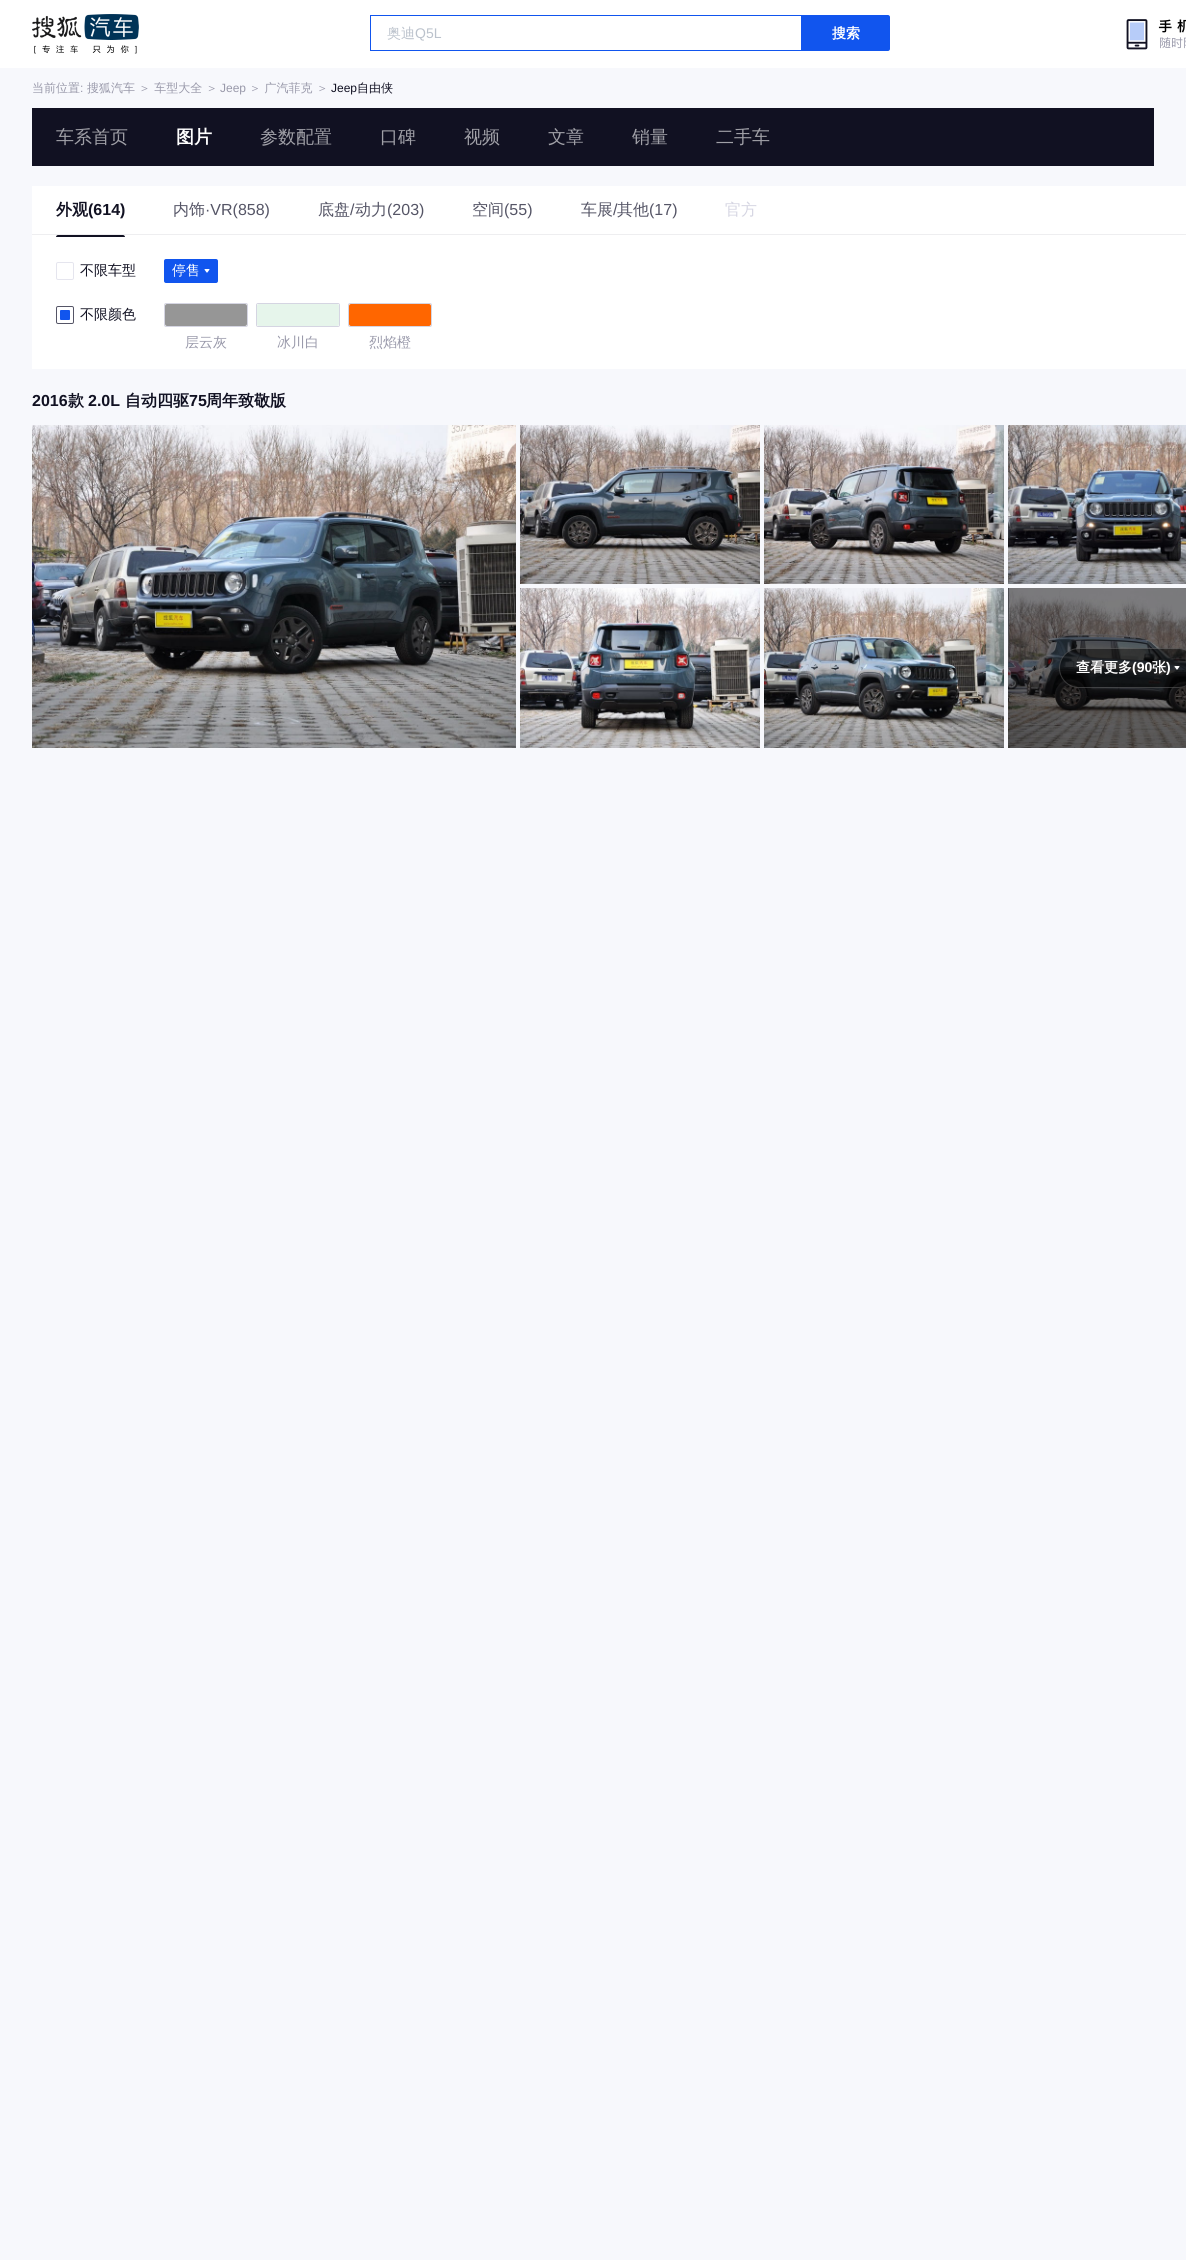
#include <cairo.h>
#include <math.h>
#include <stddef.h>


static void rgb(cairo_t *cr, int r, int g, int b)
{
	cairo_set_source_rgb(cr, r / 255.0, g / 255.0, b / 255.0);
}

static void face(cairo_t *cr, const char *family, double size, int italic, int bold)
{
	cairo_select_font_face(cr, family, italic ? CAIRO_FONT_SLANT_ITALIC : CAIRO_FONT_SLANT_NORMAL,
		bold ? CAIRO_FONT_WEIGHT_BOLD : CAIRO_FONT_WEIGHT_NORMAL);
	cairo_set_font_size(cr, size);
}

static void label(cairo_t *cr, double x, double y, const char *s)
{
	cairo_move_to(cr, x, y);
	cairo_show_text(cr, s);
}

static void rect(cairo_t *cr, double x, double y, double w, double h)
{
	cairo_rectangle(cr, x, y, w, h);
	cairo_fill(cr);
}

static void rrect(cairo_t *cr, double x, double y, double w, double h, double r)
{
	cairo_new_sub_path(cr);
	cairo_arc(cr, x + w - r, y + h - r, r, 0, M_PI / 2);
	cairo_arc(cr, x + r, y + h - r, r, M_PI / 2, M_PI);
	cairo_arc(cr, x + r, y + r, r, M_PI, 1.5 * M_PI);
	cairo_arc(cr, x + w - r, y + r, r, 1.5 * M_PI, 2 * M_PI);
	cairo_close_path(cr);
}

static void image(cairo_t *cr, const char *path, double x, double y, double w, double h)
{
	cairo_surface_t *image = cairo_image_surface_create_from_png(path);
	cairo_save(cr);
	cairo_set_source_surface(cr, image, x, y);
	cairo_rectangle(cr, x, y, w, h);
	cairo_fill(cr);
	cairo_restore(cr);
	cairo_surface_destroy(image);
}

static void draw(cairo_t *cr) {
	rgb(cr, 247, 248, 252);
	cairo_paint(cr);
	rgb(cr, 255, 255, 255);
	rect(cr, 0, 0, 1186, 68);
	image(cr, "image0.png", 32, 14, 107, 40);
	cairo_rectangle(cr, 370.5, 15.5, 431, 35);
	rgb(cr, 17, 85, 238);
	cairo_set_line_width(cr, 1);
	cairo_stroke(cr);
	face(cr, "WenQuanYi Zen Hei Medium", 14, 0, 0);
	rgb(cr, 187, 194, 204);
	label(cr, 387, 38, "奥迪");
	face(cr, "Liberation Sans", 14, 0, 0);
	label(cr, 415, 38, "Q5L");
	rgb(cr, 17, 85, 238);
	cairo_new_path(cr);
	cairo_move_to(cr, 802, 15);
	cairo_line_to(cr, 888, 15);
	cairo_curve_to(cr, 889, 15, 890, 16, 890, 17);
	cairo_line_to(cr, 890, 49);
	cairo_curve_to(cr, 890, 50, 889, 51, 888, 51);
	cairo_line_to(cr, 802, 51);
	cairo_close_path(cr);
	cairo_fill(cr);
	face(cr, "WenQuanYi Zen Hei", 14, 0, 1);
	rgb(cr, 255, 255, 255);
	label(cr, 832, 38, "搜索");
	image(cr, "image1.png", 1126, 19, 60, 31);
	face(cr, "WenQuanYi Zen Hei Medium", 12, 0, 0);
	rgb(cr, 153, 153, 170);
	label(cr, 32, 92, "当前位置");
	face(cr, "Liberation Sans", 12, 0, 0);
	label(cr, 80, 92, ":");
	face(cr, "WenQuanYi Zen Hei Medium", 12, 0, 0);
	label(cr, 87, 92, "搜狐汽车 ＞ 车型大全 ＞");
	face(cr, "Liberation Sans", 12, 0, 0);
	label(cr, 220, 92, "Jeep");
	face(cr, "WenQuanYi Zen Hei Medium", 12, 0, 0);
	label(cr, 249, 92, "＞ 广汽菲克 ＞");
	face(cr, "Liberation Sans", 12, 0, 0);
	rgb(cr, 17, 17, 34);
	label(cr, 331, 92, "Jeep");
	face(cr, "WenQuanYi Zen Hei Medium", 12, 0, 0);
	label(cr, 357, 92, "自由侠");
	rect(cr, 32, 108, 1122, 58);
	face(cr, "WenQuanYi Zen Hei Medium", 18, 0, 0);
	rgb(cr, 160, 160, 167);
	label(cr, 56, 143, "车系首页");
	face(cr, "WenQuanYi Zen Hei", 18, 0, 1);
	rgb(cr, 255, 255, 255);
	label(cr, 176, 143, "图片");
	face(cr, "WenQuanYi Zen Hei Medium", 18, 0, 0);
	rgb(cr, 160, 160, 167);
	label(cr, 260, 143, "参数配置");
	label(cr, 380, 143, "口碑");
	label(cr, 464, 143, "视频");
	label(cr, 548, 143, "文章");
	label(cr, 632, 143, "销量");
	label(cr, 716, 143, "二手车");
	rgb(cr, 255, 255, 255);
	rect(cr, 32, 186, 1154, 183);
	rgb(cr, 238, 238, 240);
	rect(cr, 32, 234, 1154, 1);
	face(cr, "WenQuanYi Zen Hei", 16, 0, 1);
	rgb(cr, 17, 17, 34);
	label(cr, 56, 215, "外观");
	face(cr, "Liberation Sans", 16, 0, 1);
	label(cr, 88, 215, "(614)");
	cairo_new_path(cr);
	cairo_move_to(cr, 58, 235);
	cairo_line_to(cr, 123, 235);
	cairo_curve_to(cr, 124, 235, 125, 236, 125, 237);
	cairo_line_to(cr, 56, 237);
	cairo_curve_to(cr, 56, 236, 57, 235, 58, 235);
	cairo_close_path(cr);
	cairo_fill(cr);
	face(cr, "WenQuanYi Zen Hei Medium", 16, 0, 0);
	rgb(cr, 85, 85, 102);
	label(cr, 173, 215, "内饰");
	face(cr, "Liberation Sans", 16, 0, 0);
	label(cr, 205, 215, "·VR(858)");
	face(cr, "WenQuanYi Zen Hei Medium", 16, 0, 0);
	label(cr, 318, 215, "底盘");
	face(cr, "Liberation Sans", 16, 0, 0);
	label(cr, 350, 215, "/");
	face(cr, "WenQuanYi Zen Hei Medium", 16, 0, 0);
	label(cr, 355, 215, "动力");
	face(cr, "Liberation Sans", 16, 0, 0);
	label(cr, 387, 215, "(203)");
	face(cr, "WenQuanYi Zen Hei Medium", 16, 0, 0);
	label(cr, 472, 215, "空间");
	face(cr, "Liberation Sans", 16, 0, 0);
	label(cr, 504, 215, "(55)");
	face(cr, "WenQuanYi Zen Hei Medium", 16, 0, 0);
	label(cr, 581, 215, "车展");
	face(cr, "Liberation Sans", 16, 0, 0);
	label(cr, 613, 215, "/");
	face(cr, "WenQuanYi Zen Hei Medium", 16, 0, 0);
	label(cr, 617, 215, "其他");
	face(cr, "Liberation Sans", 16, 0, 0);
	label(cr, 649, 215, "(17)");
	face(cr, "WenQuanYi Zen Hei Medium", 16, 0, 0);
	rgb(cr, 213, 213, 226);
	label(cr, 725, 215, "官方");
	rrect(cr, 56.5, 262.5, 17, 17, 1.5);
	rgb(cr, 229, 229, 238);
	cairo_stroke(cr);
	face(cr, "WenQuanYi Zen Hei Medium", 14, 0, 0);
	rgb(cr, 17, 17, 34);
	label(cr, 80, 275, "不限车型");
	rgb(cr, 17, 85, 238);
	rrect(cr, 164, 259, 54, 24, 2);
	cairo_fill(cr);
	rgb(cr, 255, 255, 255);
	label(cr, 172, 275, "停售");
	image(cr, "image2.png", 204, 269, 6, 4);
	rrect(cr, 56.5, 306.5, 17, 17, 1.5);
	rgb(cr, 85, 85, 102);
	cairo_stroke(cr);
	rgb(cr, 17, 85, 238);
	rrect(cr, 60, 310, 10, 10, 1);
	cairo_fill(cr);
	rgb(cr, 17, 17, 34);
	label(cr, 80, 319, "不限颜色");
	rrect(cr, 164.5, 303.5, 83, 23, 1.5);
	rgb(cr, 213, 213, 226);
	cairo_stroke(cr);
	cairo_save(cr);
	rrect(cr, 165, 304, 82, 22, 1);
	cairo_clip(cr);
	rgb(cr, 150, 150, 150);
	rrect(cr, 165, 304, 82, 22, 2);
	cairo_fill(cr);
	cairo_restore(cr);
	rgb(cr, 153, 153, 170);
	label(cr, 185, 347, "层云灰");
	rrect(cr, 256.5, 303.5, 83, 23, 1.5);
	rgb(cr, 213, 213, 226);
	cairo_stroke(cr);
	cairo_save(cr);
	rrect(cr, 257, 304, 82, 22, 1);
	cairo_clip(cr);
	rgb(cr, 230, 245, 235);
	rrect(cr, 257, 304, 82, 22, 2);
	cairo_fill(cr);
	cairo_restore(cr);
	rgb(cr, 153, 153, 170);
	label(cr, 277, 347, "冰川白");
	rrect(cr, 348.5, 303.5, 83, 23, 1.5);
	rgb(cr, 213, 213, 226);
	cairo_stroke(cr);
	cairo_save(cr);
	rrect(cr, 349, 304, 82, 22, 1);
	cairo_clip(cr);
	rgb(cr, 255, 102, 0);
	rrect(cr, 349, 304, 82, 22, 2);
	cairo_fill(cr);
	cairo_restore(cr);
	rgb(cr, 153, 153, 170);
	label(cr, 369, 347, "烈焰橙");
	face(cr, "Liberation Sans", 16, 0, 1);
	rgb(cr, 17, 17, 34);
	label(cr, 32, 406, "2016");
	face(cr, "WenQuanYi Zen Hei", 16, 0, 1);
	label(cr, 68, 406, "款");
	face(cr, "Liberation Sans", 16, 0, 1);
	label(cr, 88, 406, "2.0L");
	face(cr, "WenQuanYi Zen Hei", 16, 0, 1);
	label(cr, 125, 406, "自动四驱");
	face(cr, "Liberation Sans", 16, 0, 1);
	label(cr, 189, 406, "75");
	face(cr, "WenQuanYi Zen Hei", 16, 0, 1);
	label(cr, 206, 406, "周年致敬版");
	image(cr, "image3.png", 32, 425, 484, 323);
	image(cr, "image4.png", 520, 425, 240, 159);
	image(cr, "image5.png", 764, 425, 240, 159);
	image(cr, "image6.png", 1008, 425, 178, 159);
	image(cr, "image7.png", 520, 588, 240, 160);
	image(cr, "image8.png", 764, 588, 240, 160);
	image(cr, "image9.png", 1008, 588, 178, 160);
	cairo_set_source_rgba(cr, 0, 0, 0, 0.5);
	rrect(cr, 1059, 648, 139, 40, 20);
	cairo_fill(cr);
	rrect(cr, 1059.5, 648.5, 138, 39, 19.5);
	cairo_set_source_rgba(cr, 1, 1, 1, 0.2);
	cairo_stroke(cr);
	face(cr, "WenQuanYi Zen Hei", 14, 0, 1);
	rgb(cr, 255, 255, 255);
	label(cr, 1076, 672, "查看更多");
	face(cr, "Liberation Sans", 14, 0, 1);
	label(cr, 1132, 672, "(90");
	face(cr, "WenQuanYi Zen Hei", 14, 0, 1);
	label(cr, 1152, 672, "张");
	face(cr, "Liberation Sans", 14, 0, 1);
	label(cr, 1166, 672, ")");
	image(cr, "image10.png", 1174, 666, 6, 4);
}

int main(void) {
	cairo_surface_t *surface = cairo_image_surface_create(CAIRO_FORMAT_RGB24, 1186, 2260);
	cairo_t *cr = cairo_create(surface);
	cairo_font_options_t *options = cairo_font_options_create();
	cairo_font_options_set_hint_metrics(options, CAIRO_HINT_METRICS_OFF);
	cairo_font_options_set_hint_style(options, CAIRO_HINT_STYLE_NONE);
	cairo_set_font_options(cr, options);
	cairo_set_miter_limit(cr, 4);
	draw(cr);
	cairo_surface_write_to_png(surface, "render.png");
	cairo_font_options_destroy(options);
	cairo_destroy(cr);
	cairo_surface_destroy(surface);
	return 0;
}
